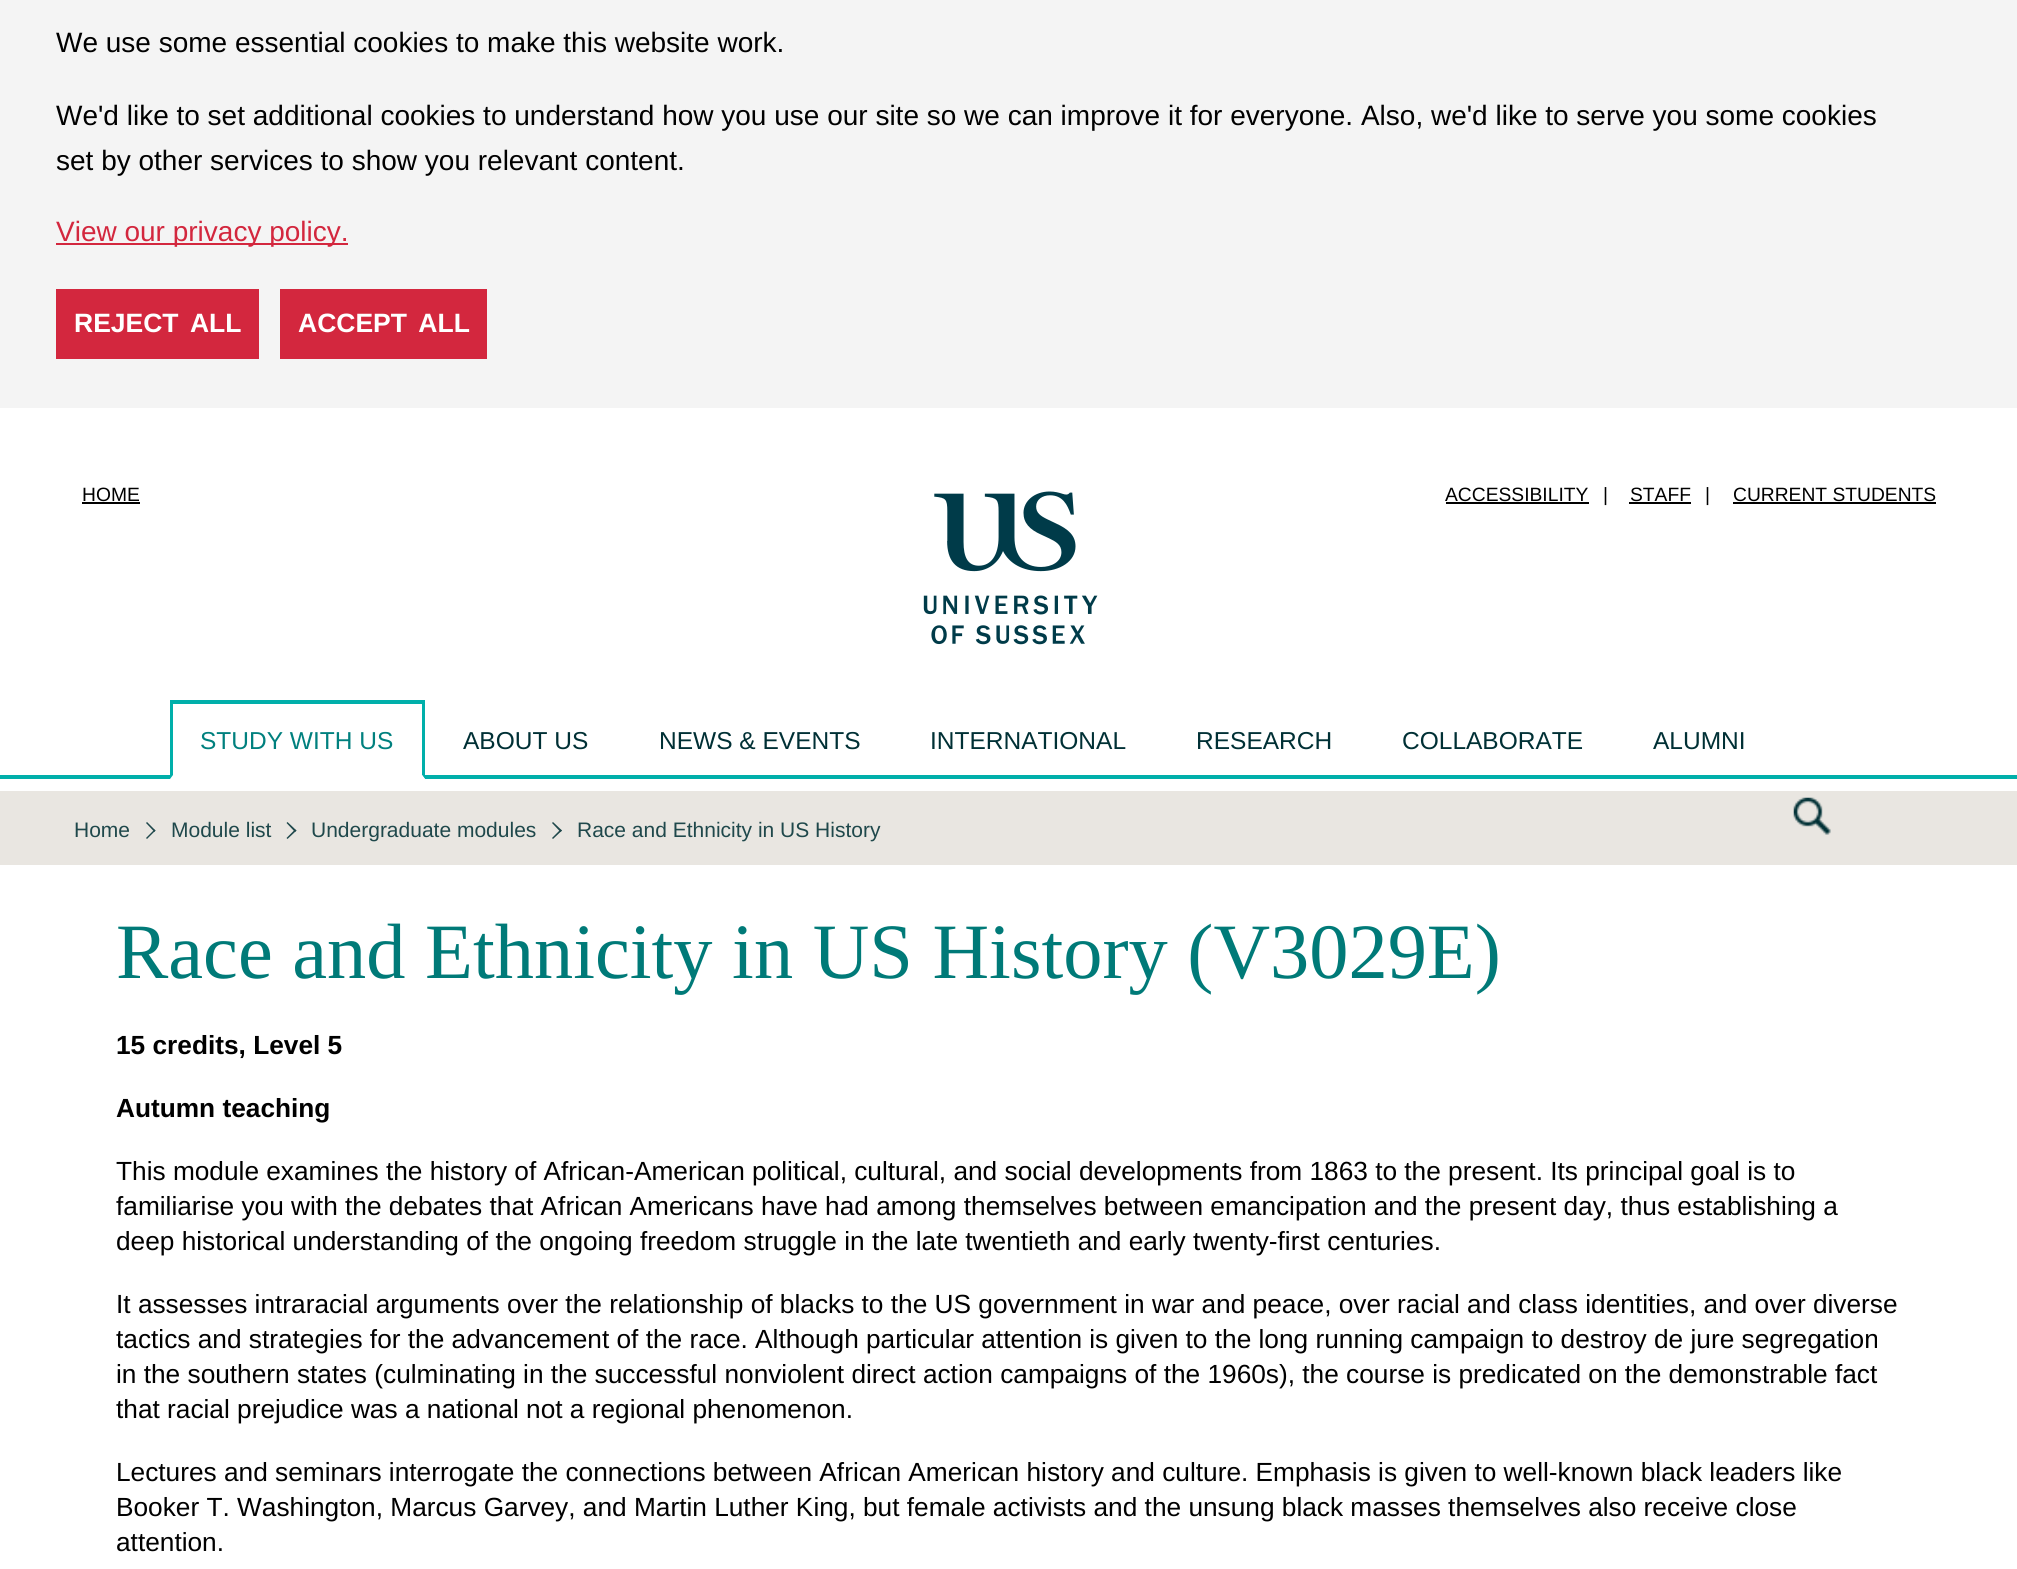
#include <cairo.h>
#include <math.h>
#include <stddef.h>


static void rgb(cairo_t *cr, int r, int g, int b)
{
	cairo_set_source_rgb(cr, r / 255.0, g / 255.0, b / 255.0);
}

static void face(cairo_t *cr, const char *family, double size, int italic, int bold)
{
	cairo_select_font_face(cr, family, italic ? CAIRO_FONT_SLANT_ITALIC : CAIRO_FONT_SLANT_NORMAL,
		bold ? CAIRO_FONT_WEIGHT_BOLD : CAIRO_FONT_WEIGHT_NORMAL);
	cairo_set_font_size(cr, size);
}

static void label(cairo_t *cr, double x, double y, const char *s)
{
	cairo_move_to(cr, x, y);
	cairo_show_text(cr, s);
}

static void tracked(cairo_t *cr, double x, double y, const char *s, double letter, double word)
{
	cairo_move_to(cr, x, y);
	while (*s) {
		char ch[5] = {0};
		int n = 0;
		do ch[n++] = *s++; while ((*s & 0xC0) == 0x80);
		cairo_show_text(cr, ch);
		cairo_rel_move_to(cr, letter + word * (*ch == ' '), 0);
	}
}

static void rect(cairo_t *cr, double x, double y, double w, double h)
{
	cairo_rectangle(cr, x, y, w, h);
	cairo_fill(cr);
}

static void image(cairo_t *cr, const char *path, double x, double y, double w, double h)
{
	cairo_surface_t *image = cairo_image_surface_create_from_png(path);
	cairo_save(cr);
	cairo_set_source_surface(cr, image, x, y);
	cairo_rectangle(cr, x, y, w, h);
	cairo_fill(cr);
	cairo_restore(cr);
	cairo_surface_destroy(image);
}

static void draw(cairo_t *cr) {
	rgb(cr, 255, 255, 255);
	cairo_paint(cr);
	rgb(cr, 244, 244, 244);
	rect(cr, 0, 0, 2017, 408);
	face(cr, "Liberation Sans", 28, 0, 0);
	rgb(cr, 0, 0, 0);
	label(cr, 56, 52, "We use some essential cookies to make this website work.");
	label(cr, 56, 125, "We'd like to set additional cookies to understand how you use our site so we can improve it for everyone. Also, we'd like to serve you some cookies");
	label(cr, 56, 170, "set by other services to show you relevant content.");
	rgb(cr, 211, 39, 62);
	rect(cr, 56, 243, 292, 2);
	label(cr, 56, 241, "View our privacy policy.");
	rect(cr, 56, 289, 203, 70);
	face(cr, "Liberation Sans", 26.5, 0, 1);
	rgb(cr, 255, 255, 255);
	tracked(cr, 74, 332, "REJECT ALL", 0, 4);
	rgb(cr, 211, 39, 62);
	rect(cr, 280, 289, 207, 70);
	rgb(cr, 255, 255, 255);
	tracked(cr, 298, 332, "ACCEPT ALL", 0, 4);
	face(cr, "Liberation Sans", 19.25, 0, 0);
	rgb(cr, 0, 0, 0);
	label(cr, 82, 501, "HOME");
	rect(cr, 82, 502, 58, 2);
	label(cr, 1445, 501, "ACCESSIBILITY");
	rect(cr, 1446, 502, 143, 2);
	label(cr, 1603, 501, "|");
	label(cr, 1630, 501, "STAFF");
	rect(cr, 1629, 502, 62, 2);
	label(cr, 1705, 501, "|");
	label(cr, 1733, 501, "CURRENT STUDENTS");
	rect(cr, 1733, 502, 203, 2);
	image(cr, "image0.png", 923, 491, 175, 154);
	rgb(cr, 0, 175, 170);
	rect(cr, 0, 775, 2017, 4);
	rgb(cr, 255, 255, 255);
	rect(cr, 170, 775, 255, 4);
	rgb(cr, 0, 175, 170);
	rect(cr, 170, 700, 255, 4);
	cairo_new_path(cr);
	cairo_move_to(cr, 425, 700);
	cairo_line_to(cr, 425, 779);
	cairo_line_to(cr, 422, 775);
	cairo_line_to(cr, 422, 704);
	cairo_close_path(cr);
	cairo_fill(cr);
	rgb(cr, 255, 255, 255);
	cairo_new_path(cr);
	cairo_move_to(cr, 425, 779);
	cairo_line_to(cr, 170, 779);
	cairo_line_to(cr, 173, 775);
	cairo_line_to(cr, 422, 775);
	cairo_close_path(cr);
	cairo_fill(cr);
	rgb(cr, 0, 175, 170);
	cairo_new_path(cr);
	cairo_move_to(cr, 170, 779);
	cairo_line_to(cr, 170, 700);
	cairo_line_to(cr, 173, 704);
	cairo_line_to(cr, 173, 775);
	cairo_close_path(cr);
	cairo_fill(cr);
	face(cr, "Liberation Sans", 24.5, 0, 0);
	rgb(cr, 0, 128, 126);
	label(cr, 200, 749, "STUDY WITH US");
	rgb(cr, 0, 48, 53);
	label(cr, 463, 749, "ABOUT US");
	label(cr, 659, 749, "NEWS & EVENTS");
	label(cr, 930, 749, "INTERNATIONAL");
	label(cr, 1196, 749, "RESEARCH");
	label(cr, 1402, 749, "COLLABORATE");
	label(cr, 1653, 749, "ALUMNI");
	rgb(cr, 233, 230, 225);
	rect(cr, 0, 791, 2017, 74);
	image(cr, "image1.png", 1793, 797, 38, 38);
	face(cr, "Liberation Sans", 21, 0, 0);
	rgb(cr, 31, 72, 75);
	label(cr, 74, 837, "Home");
	cairo_new_path(cr);
	cairo_move_to(cr, 147, 822);
	cairo_line_to(cr, 155.5, 830.5);
	cairo_line_to(cr, 154.5, 832);
	cairo_line_to(cr, 146, 823);
	cairo_close_path(cr);
	cairo_fill(cr);
	cairo_new_path(cr);
	cairo_move_to(cr, 154.5, 829.5);
	cairo_line_to(cr, 155.5, 830.5);
	cairo_line_to(cr, 147, 839);
	cairo_line_to(cr, 146, 838);
	cairo_close_path(cr);
	cairo_fill(cr);
	label(cr, 171, 837, "Module list");
	cairo_new_path(cr);
	cairo_move_to(cr, 287.5, 822);
	cairo_line_to(cr, 296.5, 830.5);
	cairo_line_to(cr, 295, 832);
	cairo_line_to(cr, 286.5, 823);
	cairo_close_path(cr);
	cairo_fill(cr);
	cairo_new_path(cr);
	cairo_move_to(cr, 295, 829.5);
	cairo_line_to(cr, 296.5, 830.5);
	cairo_line_to(cr, 287.5, 839);
	cairo_line_to(cr, 286.5, 838);
	cairo_close_path(cr);
	cairo_fill(cr);
	label(cr, 311, 837, "Undergraduate modules");
	cairo_new_path(cr);
	cairo_move_to(cr, 553, 822);
	cairo_line_to(cr, 562, 830.5);
	cairo_line_to(cr, 560.5, 832);
	cairo_line_to(cr, 552, 823);
	cairo_close_path(cr);
	cairo_fill(cr);
	cairo_new_path(cr);
	cairo_move_to(cr, 560.5, 829.5);
	cairo_line_to(cr, 562, 830.5);
	cairo_line_to(cr, 553, 839);
	cairo_line_to(cr, 552, 838);
	cairo_close_path(cr);
	cairo_fill(cr);
	label(cr, 577, 837, "Race and Ethnicity in US History");
	face(cr, "Liberation Serif", 78.4, 0, 0);
	rgb(cr, 0, 122, 120);
	label(cr, 116, 978, "Race and Ethnicity in US History (V3029E)");
	face(cr, "Liberation Sans", 26.25, 0, 1);
	rgb(cr, 0, 0, 0);
	label(cr, 116, 1054, "15 credits, Level 5");
	label(cr, 116, 1117, "Autumn teaching");
	face(cr, "Liberation Sans", 26.25, 0, 0);
	label(cr, 116, 1180, "This module examines the history of African-American political, cultural, and social developments from 1863 to the present. Its principal goal is to");
	label(cr, 116, 1215, "familiarise you with the debates that African Americans have had among themselves between emancipation and the present day, thus establishing a");
	label(cr, 116, 1250, "deep historical understanding of the ongoing freedom struggle in the late twentieth and early twenty-first centuries.");
	label(cr, 116, 1313, "It assesses intraracial arguments over the relationship of blacks to the US government in war and peace, over racial and class identities, and over diverse");
	label(cr, 116, 1348, "tactics and strategies for the advancement of the race. Although particular attention is given to the long running campaign to destroy de jure segregation");
	label(cr, 116, 1383, "in the southern states (culminating in the successful nonviolent direct action campaigns of the 1960s), the course is predicated on the demonstrable fact");
	label(cr, 116, 1418, "that racial prejudice was a national not a regional phenomenon.");
	label(cr, 116, 1481, "Lectures and seminars interrogate the connections between African American history and culture. Emphasis is given to well-known black leaders like");
	label(cr, 116, 1516, "Booker T. Washington, Marcus Garvey, and Martin Luther King, but female activists and the unsung black masses themselves also receive close");
	label(cr, 116, 1551, "attention.");
}

int main(void) {
	cairo_surface_t *surface = cairo_image_surface_create(CAIRO_FORMAT_RGB24, 2017, 1569);
	cairo_t *cr = cairo_create(surface);
	cairo_font_options_t *options = cairo_font_options_create();
	cairo_font_options_set_hint_metrics(options, CAIRO_HINT_METRICS_OFF);
	cairo_font_options_set_hint_style(options, CAIRO_HINT_STYLE_NONE);
	cairo_set_font_options(cr, options);
	cairo_set_miter_limit(cr, 4);
	draw(cr);
	cairo_surface_write_to_png(surface, "render.png");
	cairo_font_options_destroy(options);
	cairo_destroy(cr);
	cairo_surface_destroy(surface);
	return 0;
}
